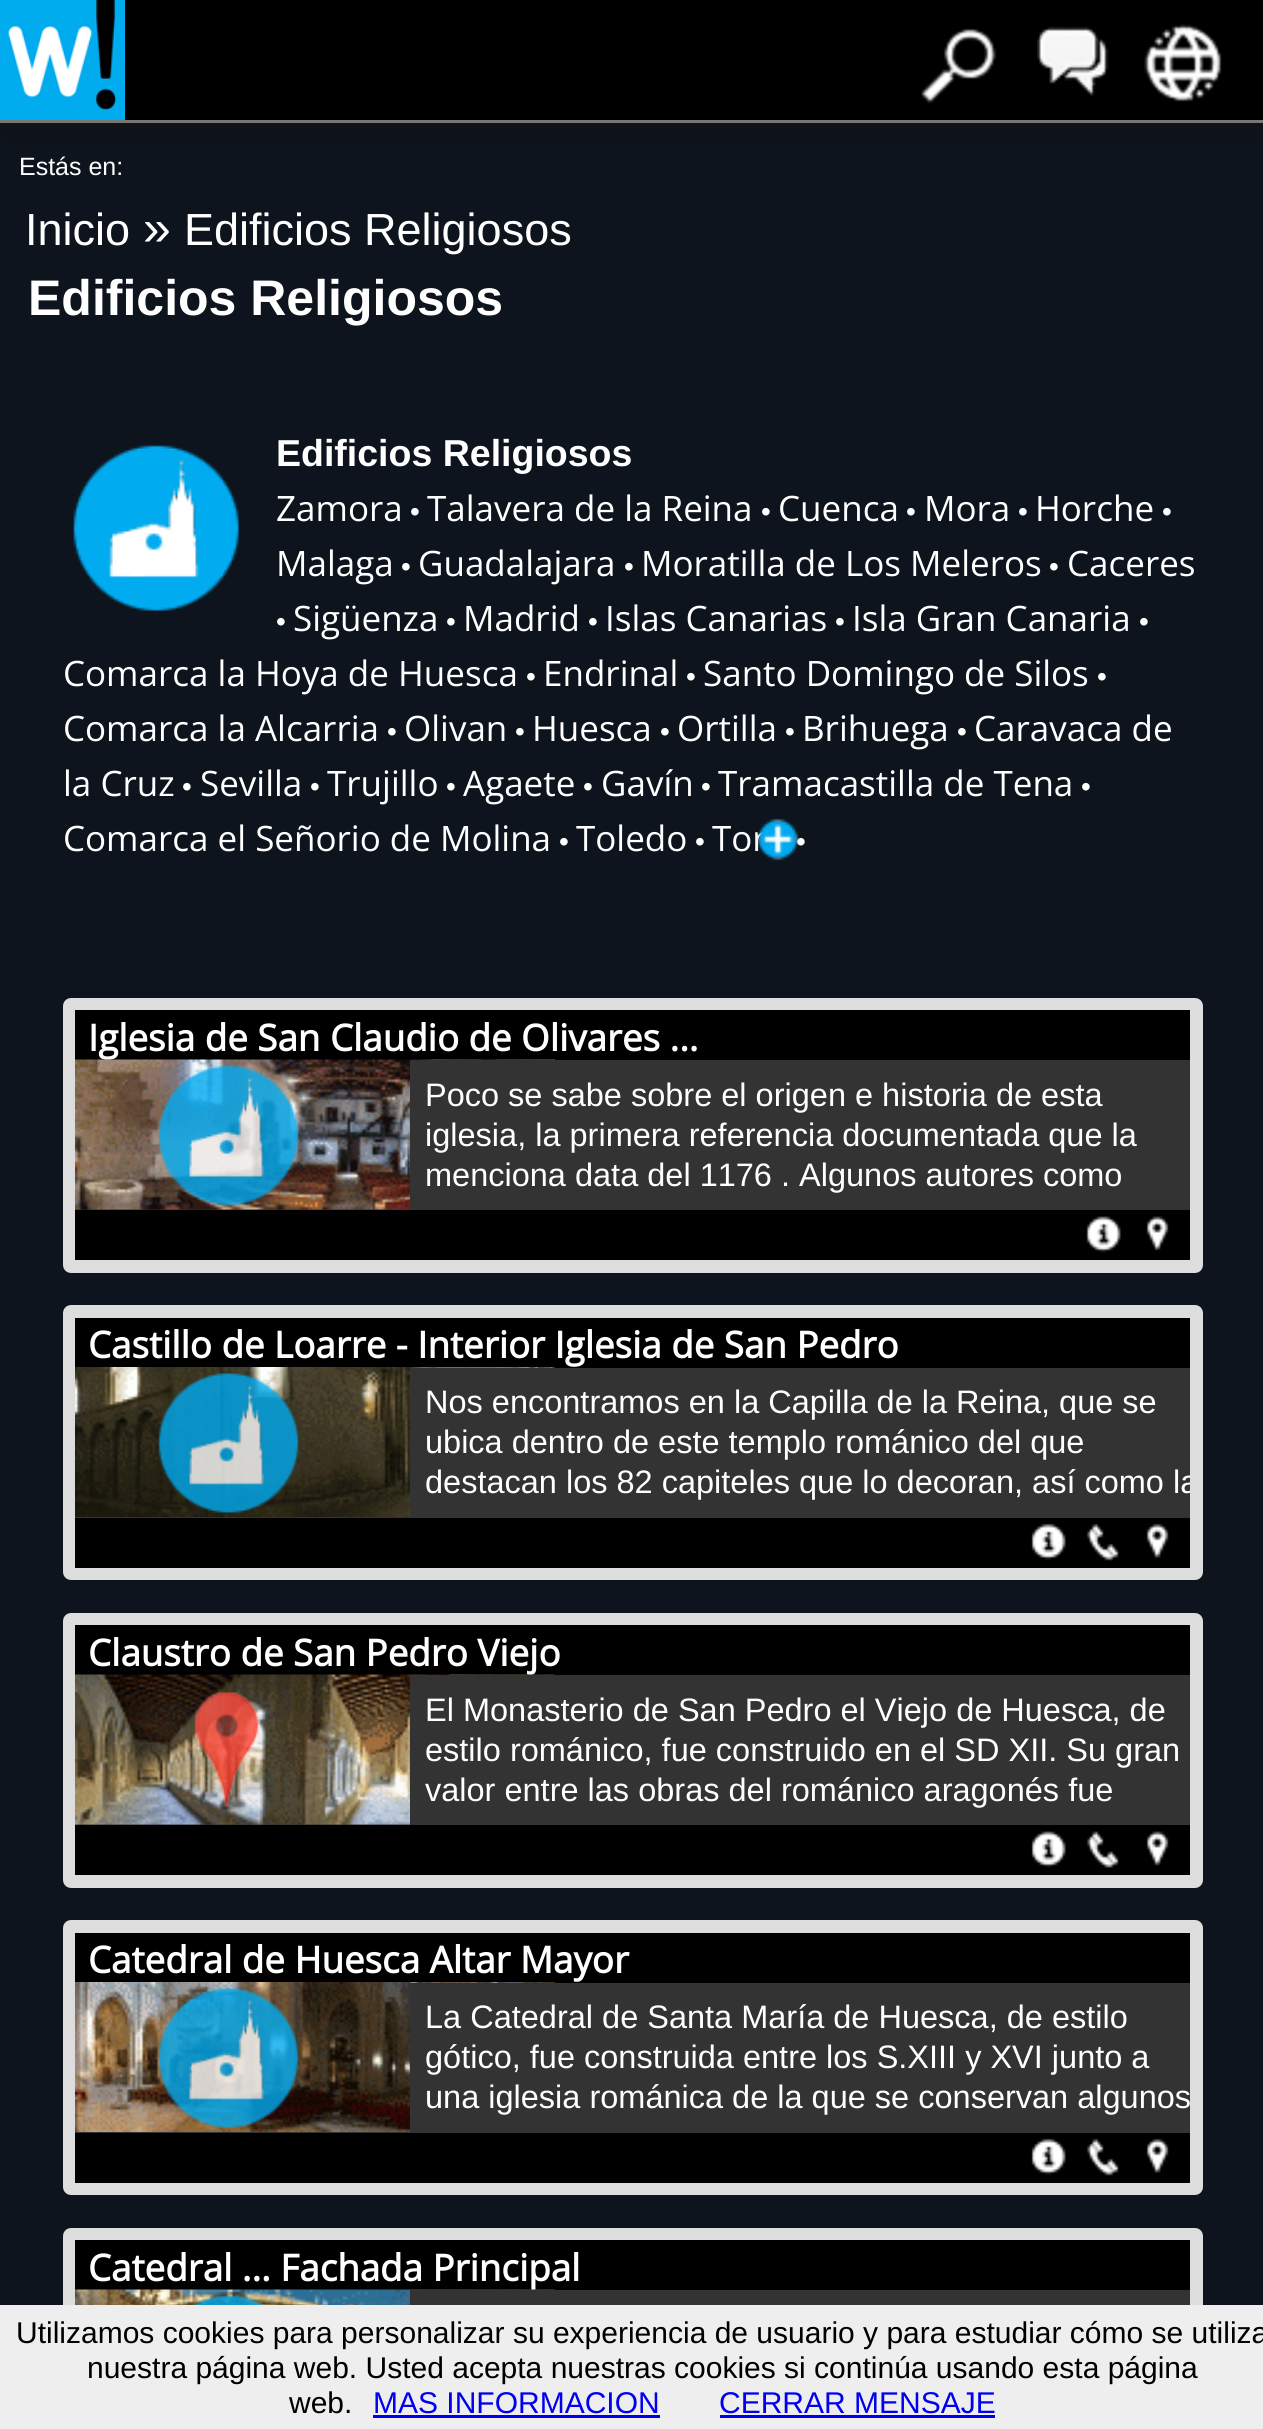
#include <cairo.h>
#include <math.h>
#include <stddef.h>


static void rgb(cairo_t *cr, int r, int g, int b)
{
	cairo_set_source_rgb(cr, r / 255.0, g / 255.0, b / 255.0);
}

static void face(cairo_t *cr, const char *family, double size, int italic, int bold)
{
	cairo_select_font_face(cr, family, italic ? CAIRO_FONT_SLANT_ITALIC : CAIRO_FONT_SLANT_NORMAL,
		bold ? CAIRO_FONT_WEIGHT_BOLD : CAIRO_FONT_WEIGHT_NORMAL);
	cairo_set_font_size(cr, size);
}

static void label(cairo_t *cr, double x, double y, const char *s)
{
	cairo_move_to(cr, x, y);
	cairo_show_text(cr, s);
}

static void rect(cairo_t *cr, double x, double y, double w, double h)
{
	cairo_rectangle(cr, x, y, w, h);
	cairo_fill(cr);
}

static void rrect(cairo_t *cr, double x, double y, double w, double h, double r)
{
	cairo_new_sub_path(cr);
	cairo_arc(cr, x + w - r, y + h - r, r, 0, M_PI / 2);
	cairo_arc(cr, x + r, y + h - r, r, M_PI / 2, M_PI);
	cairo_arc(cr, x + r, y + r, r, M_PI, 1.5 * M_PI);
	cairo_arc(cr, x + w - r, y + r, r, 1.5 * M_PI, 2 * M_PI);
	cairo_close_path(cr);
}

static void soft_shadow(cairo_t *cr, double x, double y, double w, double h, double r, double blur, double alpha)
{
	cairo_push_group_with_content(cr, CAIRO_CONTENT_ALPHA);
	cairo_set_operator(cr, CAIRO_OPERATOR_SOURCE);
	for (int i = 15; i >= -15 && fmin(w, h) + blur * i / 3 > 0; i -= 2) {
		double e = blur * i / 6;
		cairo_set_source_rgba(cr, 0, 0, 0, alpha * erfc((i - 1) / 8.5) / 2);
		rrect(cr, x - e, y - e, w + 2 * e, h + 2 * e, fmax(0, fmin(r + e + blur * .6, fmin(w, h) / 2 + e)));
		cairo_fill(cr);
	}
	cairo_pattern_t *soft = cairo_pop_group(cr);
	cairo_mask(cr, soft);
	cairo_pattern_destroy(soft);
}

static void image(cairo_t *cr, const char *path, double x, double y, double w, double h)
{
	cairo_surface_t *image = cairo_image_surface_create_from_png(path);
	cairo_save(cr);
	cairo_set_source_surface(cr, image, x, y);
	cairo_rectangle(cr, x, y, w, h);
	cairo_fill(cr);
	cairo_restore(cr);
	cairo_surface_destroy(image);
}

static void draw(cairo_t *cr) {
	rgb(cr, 13, 20, 29);
	cairo_paint(cr);
	rgb(cr, 17, 17, 17);
	soft_shadow(cr, 5, 5, 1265, 123, 0, 12.5, 1);
	rgb(cr, 0, 0, 0);
	rect(cr, 125, 0, 1138, 120);
	rgb(cr, 119, 119, 119);
	rect(cr, 0, 120, 1263, 3);
	image(cr, "image0.png", 0, 0, 125, 120);
	image(cr, "image1.png", 921, 28, 76, 76);
	image(cr, "image2.png", 1037, 27, 72, 69);
	image(cr, "image3.png", 1144, 24, 78, 78);
	face(cr, "Liberation Sans", 25, 0, 0);
	rgb(cr, 255, 255, 255);
	label(cr, 19, 175, "Estás en:");
	face(cr, "Liberation Sans", 45, 0, 0);
	label(cr, 25, 245, "Inicio");
	face(cr, "Liberation Sans", 50, 0, 0);
	label(cr, 143, 245, "»");
	face(cr, "Liberation Sans", 45, 0, 0);
	label(cr, 184, 245, "Edificios Religiosos");
	face(cr, "Liberation Sans", 50, 0, 1);
	label(cr, 28, 315, "Edificios Religiosos");
	image(cr, "image4.png", 73, 445, 166, 166);
	face(cr, "Liberation Sans", 37.5, 0, 1);
	label(cr, 276, 466, "Edificios Religiosos");
	face(cr, "Open Sans", 35, 0, 0);
	label(cr, 276, 521, "Zamora");
	face(cr, "Liberation Sans", 28, 0, 0);
	label(cr, 410, 521, "•");
	face(cr, "Open Sans", 35, 0, 0);
	label(cr, 427, 521, "Talavera de la Reina");
	face(cr, "Liberation Sans", 28, 0, 0);
	label(cr, 761, 521, "•");
	face(cr, "Open Sans", 35, 0, 0);
	label(cr, 778, 521, "Cuenca");
	face(cr, "Liberation Sans", 28, 0, 0);
	label(cr, 906, 521, "•");
	face(cr, "Open Sans", 35, 0, 0);
	label(cr, 924, 521, "Mora");
	face(cr, "Liberation Sans", 28, 0, 0);
	label(cr, 1018, 521, "•");
	face(cr, "Open Sans", 35, 0, 0);
	label(cr, 1035, 521, "Horche");
	face(cr, "Liberation Sans", 28, 0, 0);
	label(cr, 1162, 521, "•");
	face(cr, "Open Sans", 35, 0, 0);
	label(cr, 276, 576, "Malaga");
	face(cr, "Liberation Sans", 28, 0, 0);
	label(cr, 401, 576, "•");
	face(cr, "Open Sans", 35, 0, 0);
	label(cr, 418, 576, "Guadalajara");
	face(cr, "Liberation Sans", 28, 0, 0);
	label(cr, 624, 576, "•");
	face(cr, "Open Sans", 35, 0, 0);
	label(cr, 641, 576, "Moratilla de Los Meleros");
	face(cr, "Liberation Sans", 28, 0, 0);
	label(cr, 1049, 576, "•");
	face(cr, "Open Sans", 35, 0, 0);
	label(cr, 1067, 576, "Caceres");
	face(cr, "Liberation Sans", 28, 0, 0);
	label(cr, 276, 631, "•");
	face(cr, "Open Sans", 35, 0, 0);
	label(cr, 293, 631, "Sigüenza");
	face(cr, "Liberation Sans", 28, 0, 0);
	label(cr, 446, 631, "•");
	face(cr, "Open Sans", 35, 0, 0);
	label(cr, 463, 631, "Madrid");
	face(cr, "Liberation Sans", 28, 0, 0);
	label(cr, 588, 631, "•");
	face(cr, "Open Sans", 35, 0, 0);
	label(cr, 605, 631, "Islas Canarias");
	face(cr, "Liberation Sans", 28, 0, 0);
	label(cr, 835, 631, "•");
	face(cr, "Open Sans", 35, 0, 0);
	label(cr, 852, 631, "Isla Gran Canaria");
	face(cr, "Liberation Sans", 28, 0, 0);
	label(cr, 1139, 631, "•");
	face(cr, "Open Sans", 35, 0, 0);
	label(cr, 63, 686, "Comarca la Hoya de Huesca");
	face(cr, "Liberation Sans", 28, 0, 0);
	label(cr, 526, 686, "•");
	face(cr, "Open Sans", 35, 0, 0);
	label(cr, 543, 686, "Endrinal");
	face(cr, "Liberation Sans", 28, 0, 0);
	label(cr, 686, 686, "•");
	face(cr, "Open Sans", 35, 0, 0);
	label(cr, 703, 686, "Santo Domingo de Silos");
	face(cr, "Liberation Sans", 28, 0, 0);
	label(cr, 1097, 686, "•");
	face(cr, "Open Sans", 35, 0, 0);
	label(cr, 63, 741, "Comarca la Alcarria");
	face(cr, "Liberation Sans", 28, 0, 0);
	label(cr, 387, 741, "•");
	face(cr, "Open Sans", 35, 0, 0);
	label(cr, 404, 741, "Olivan");
	face(cr, "Liberation Sans", 28, 0, 0);
	label(cr, 515, 741, "•");
	face(cr, "Open Sans", 35, 0, 0);
	label(cr, 532, 741, "Huesca");
	face(cr, "Liberation Sans", 28, 0, 0);
	label(cr, 660, 741, "•");
	face(cr, "Open Sans", 35, 0, 0);
	label(cr, 677, 741, "Ortilla");
	face(cr, "Liberation Sans", 28, 0, 0);
	label(cr, 785, 741, "•");
	face(cr, "Open Sans", 35, 0, 0);
	label(cr, 802, 741, "Brihuega");
	face(cr, "Liberation Sans", 28, 0, 0);
	label(cr, 957, 741, "•");
	face(cr, "Open Sans", 35, 0, 0);
	label(cr, 974, 741, "Caravaca de");
	label(cr, 63, 796, "la Cruz");
	face(cr, "Liberation Sans", 28, 0, 0);
	label(cr, 182, 796, "•");
	face(cr, "Open Sans", 35, 0, 0);
	label(cr, 200, 796, "Sevilla");
	face(cr, "Liberation Sans", 28, 0, 0);
	label(cr, 310, 796, "•");
	face(cr, "Open Sans", 35, 0, 0);
	label(cr, 327, 796, "Trujillo");
	face(cr, "Liberation Sans", 28, 0, 0);
	label(cr, 446, 796, "•");
	face(cr, "Open Sans", 35, 0, 0);
	label(cr, 463, 796, "Agaete");
	face(cr, "Liberation Sans", 28, 0, 0);
	label(cr, 583, 796, "•");
	face(cr, "Open Sans", 35, 0, 0);
	label(cr, 601, 796, "Gavín");
	face(cr, "Liberation Sans", 28, 0, 0);
	label(cr, 701, 796, "•");
	face(cr, "Open Sans", 35, 0, 0);
	label(cr, 718, 796, "Tramacastilla de Tena");
	face(cr, "Liberation Sans", 28, 0, 0);
	label(cr, 1081, 796, "•");
	face(cr, "Open Sans", 35, 0, 0);
	label(cr, 63, 851, "Comarca el Señorio de Molina");
	face(cr, "Liberation Sans", 28, 0, 0);
	label(cr, 559, 851, "•");
	face(cr, "Open Sans", 35, 0, 0);
	label(cr, 576, 851, "Toledo");
	face(cr, "Liberation Sans", 28, 0, 0);
	label(cr, 695, 851, "•");
	face(cr, "Open Sans", 35, 0, 0);
	label(cr, 712, 851, "Tor");
	face(cr, "Liberation Sans", 28, 0, 0);
	label(cr, 796, 851, "•");
	image(cr, "image5.png", 757, 818, 42, 43);
	rrect(cr, 69.5, 1004.5, 1127, 262, 1.5);
	rgb(cr, 221, 221, 221);
	cairo_set_line_width(cr, 13);
	cairo_stroke(cr);
	rgb(cr, 0, 0, 0);
	rect(cr, 75, 1010, 1115, 50);
	face(cr, "Open Sans", 36.7, 0, 1);
	rgb(cr, 255, 255, 255);
	label(cr, 88, 1051, "Iglesia de San Claudio de Olivares ...");
	rgb(cr, 51, 51, 51);
	rect(cr, 75, 1209, 335, 1);
	image(cr, "image6.png", 75, 1059, 480, 151);
	image(cr, "image7.png", 158, 1065, 141, 141);
	rect(cr, 410, 1060, 780, 150);
	face(cr, "Liberation Sans", 32.5, 0, 0);
	rgb(cr, 255, 255, 255);
	label(cr, 425, 1106, "Poco se sabe sobre el origen e historia de esta");
	label(cr, 425, 1146, "iglesia, la primera referencia documentada que la");
	label(cr, 425, 1186, "menciona data del 1176 . Algunos autores como");
	rgb(cr, 0, 0, 0);
	rect(cr, 75, 1210, 1115, 50);
	image(cr, "image8.png", 1086, 1216, 35, 37);
	image(cr, "image9.png", 1146, 1216, 23, 35);
	rrect(cr, 69.5, 1311.5, 1127, 262, 1.5);
	rgb(cr, 221, 221, 221);
	cairo_stroke(cr);
	rgb(cr, 0, 0, 0);
	rect(cr, 75, 1318, 1115, 50);
	face(cr, "Open Sans", 36.7, 0, 1);
	rgb(cr, 255, 255, 255);
	label(cr, 88, 1358, "Castillo de Loarre - Interior Iglesia de San Pedro");
	rgb(cr, 51, 51, 51);
	rect(cr, 75, 1517, 335, 1);
	image(cr, "image10.png", 75, 1367, 480, 150);
	image(cr, "image11.png", 158, 1373, 141, 140);
	rect(cr, 410, 1368, 780, 150);
	face(cr, "Liberation Sans", 32.5, 0, 0);
	rgb(cr, 255, 255, 255);
	label(cr, 425, 1413, "Nos encontramos en la Capilla de la Reina, que se");
	label(cr, 425, 1453, "ubica dentro de este templo románico del que");
	cairo_save(cr);
	cairo_rectangle(cr, 425, 1383, 765, 122);
	cairo_clip(cr);
	label(cr, 425, 1493, "destacan los 82 capiteles que lo decoran, así como la");
	cairo_restore(cr);
	rgb(cr, 0, 0, 0);
	rect(cr, 75, 1518, 1115, 50);
	image(cr, "image12.png", 1031, 1523, 35, 37);
	image(cr, "image13.png", 1086, 1523, 33, 38);
	image(cr, "image14.png", 1146, 1523, 23, 35);
	rrect(cr, 69.5, 1619.5, 1127, 262, 1.5);
	rgb(cr, 221, 221, 221);
	cairo_stroke(cr);
	rgb(cr, 0, 0, 0);
	rect(cr, 75, 1625, 1115, 50);
	face(cr, "Open Sans", 36.7, 0, 1);
	rgb(cr, 255, 255, 255);
	label(cr, 88, 1666, "Claustro de San Pedro Viejo");
	rgb(cr, 51, 51, 51);
	rect(cr, 75, 1824, 335, 1);
	image(cr, "image15.png", 75, 1674, 480, 151);
	image(cr, "image16.png", 194, 1692, 67, 115);
	rect(cr, 410, 1675, 780, 150);
	face(cr, "Liberation Sans", 32.5, 0, 0);
	rgb(cr, 255, 255, 255);
	label(cr, 425, 1721, "El Monasterio de San Pedro el Viejo de Huesca, de");
	label(cr, 425, 1761, "estilo románico, fue construido en el SD XII. Su gran");
	label(cr, 425, 1801, "valor entre las obras del románico aragonés fue");
	rgb(cr, 0, 0, 0);
	rect(cr, 75, 1825, 1115, 50);
	image(cr, "image17.png", 1031, 1831, 35, 37);
	image(cr, "image18.png", 1086, 1831, 33, 37);
	image(cr, "image19.png", 1146, 1831, 23, 35);
	rrect(cr, 69.5, 1926.5, 1127, 262, 1.5);
	rgb(cr, 221, 221, 221);
	cairo_stroke(cr);
	rgb(cr, 0, 0, 0);
	rect(cr, 75, 1933, 1115, 50);
	face(cr, "Open Sans", 36.7, 0, 1);
	rgb(cr, 255, 255, 255);
	label(cr, 88, 1973, "Catedral de Huesca Altar Mayor");
	rgb(cr, 51, 51, 51);
	rect(cr, 75, 2132, 335, 1);
	image(cr, "image20.png", 75, 1982, 480, 150);
	image(cr, "image21.png", 158, 1988, 141, 140);
	rect(cr, 410, 1983, 780, 150);
	face(cr, "Liberation Sans", 32.5, 0, 0);
	rgb(cr, 255, 255, 255);
	label(cr, 425, 2028, "La Catedral de Santa María de Huesca, de estilo");
	label(cr, 425, 2068, "gótico, fue construida entre los S.XIII y XVI junto a");
	label(cr, 425, 2108, "una iglesia románica de la que se conservan algunos");
	rgb(cr, 0, 0, 0);
	rect(cr, 75, 2133, 1115, 50);
	image(cr, "image12.png", 1031, 2138, 35, 37);
	image(cr, "image13.png", 1086, 2138, 33, 38);
	image(cr, "image14.png", 1146, 2138, 23, 35);
	rrect(cr, 69.5, 2234.5, 1127, 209, 1.5);
	rgb(cr, 221, 221, 221);
	cairo_stroke(cr);
	rgb(cr, 0, 0, 0);
	rect(cr, 75, 2240, 1115, 50);
	face(cr, "Open Sans", 36.7, 0, 1);
	rgb(cr, 255, 255, 255);
	label(cr, 88, 2281, "Catedral ... Fachada Principal");
	image(cr, "image22.png", 75, 2289, 480, 16);
	image(cr, "image23.png", 193, 2295, 71, 10);
	rgb(cr, 51, 51, 51);
	rect(cr, 410, 2290, 780, 15);
	rgb(cr, 238, 238, 238);
	rect(cr, 0, 2305, 1263, 124);
	face(cr, "Liberation Sans", 30, 0, 0);
	rgb(cr, 0, 0, 0);
	label(cr, 16, 2343, "Utilizamos cookies para personalizar su experiencia de usuario y para estudiar cómo se utiliza");
	label(cr, 87, 2378, "nuestra página web. Usted acepta nuestras cookies si continúa usando esta página");
	label(cr, 289, 2413, "web.");
	rgb(cr, 0, 0, 238);
	label(cr, 373, 2413, "MAS INFORMACION");
	rect(cr, 373, 2415, 287, 3);
	label(cr, 719, 2413, "CERRAR MENSAJE");
	rect(cr, 720, 2415, 275, 3);
}

int main(void) {
	cairo_surface_t *surface = cairo_image_surface_create(CAIRO_FORMAT_RGB24, 1263, 2429);
	cairo_t *cr = cairo_create(surface);
	cairo_font_options_t *options = cairo_font_options_create();
	cairo_font_options_set_hint_metrics(options, CAIRO_HINT_METRICS_OFF);
	cairo_font_options_set_hint_style(options, CAIRO_HINT_STYLE_NONE);
	cairo_set_font_options(cr, options);
	cairo_set_miter_limit(cr, 4);
	draw(cr);
	cairo_surface_write_to_png(surface, "render.png");
	cairo_font_options_destroy(options);
	cairo_destroy(cr);
	cairo_surface_destroy(surface);
	return 0;
}
